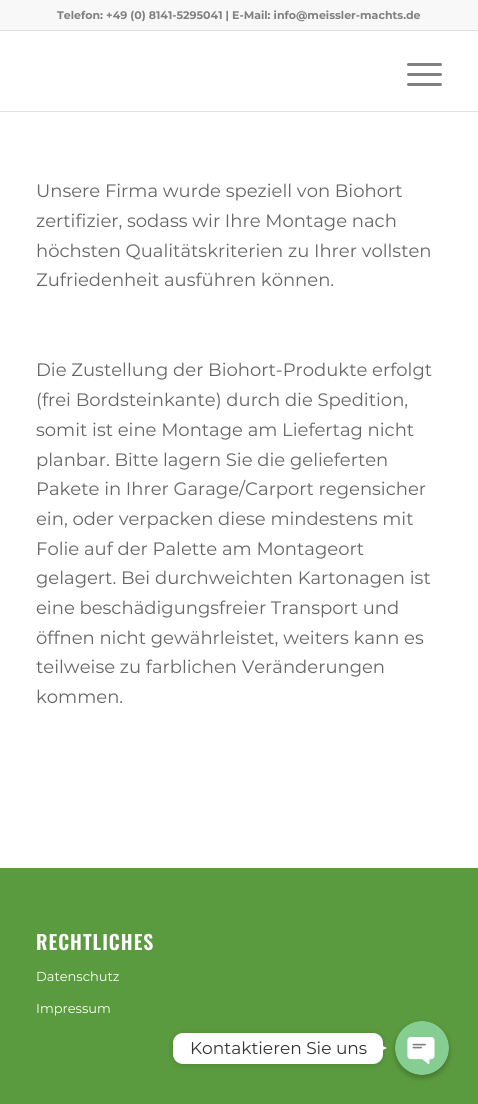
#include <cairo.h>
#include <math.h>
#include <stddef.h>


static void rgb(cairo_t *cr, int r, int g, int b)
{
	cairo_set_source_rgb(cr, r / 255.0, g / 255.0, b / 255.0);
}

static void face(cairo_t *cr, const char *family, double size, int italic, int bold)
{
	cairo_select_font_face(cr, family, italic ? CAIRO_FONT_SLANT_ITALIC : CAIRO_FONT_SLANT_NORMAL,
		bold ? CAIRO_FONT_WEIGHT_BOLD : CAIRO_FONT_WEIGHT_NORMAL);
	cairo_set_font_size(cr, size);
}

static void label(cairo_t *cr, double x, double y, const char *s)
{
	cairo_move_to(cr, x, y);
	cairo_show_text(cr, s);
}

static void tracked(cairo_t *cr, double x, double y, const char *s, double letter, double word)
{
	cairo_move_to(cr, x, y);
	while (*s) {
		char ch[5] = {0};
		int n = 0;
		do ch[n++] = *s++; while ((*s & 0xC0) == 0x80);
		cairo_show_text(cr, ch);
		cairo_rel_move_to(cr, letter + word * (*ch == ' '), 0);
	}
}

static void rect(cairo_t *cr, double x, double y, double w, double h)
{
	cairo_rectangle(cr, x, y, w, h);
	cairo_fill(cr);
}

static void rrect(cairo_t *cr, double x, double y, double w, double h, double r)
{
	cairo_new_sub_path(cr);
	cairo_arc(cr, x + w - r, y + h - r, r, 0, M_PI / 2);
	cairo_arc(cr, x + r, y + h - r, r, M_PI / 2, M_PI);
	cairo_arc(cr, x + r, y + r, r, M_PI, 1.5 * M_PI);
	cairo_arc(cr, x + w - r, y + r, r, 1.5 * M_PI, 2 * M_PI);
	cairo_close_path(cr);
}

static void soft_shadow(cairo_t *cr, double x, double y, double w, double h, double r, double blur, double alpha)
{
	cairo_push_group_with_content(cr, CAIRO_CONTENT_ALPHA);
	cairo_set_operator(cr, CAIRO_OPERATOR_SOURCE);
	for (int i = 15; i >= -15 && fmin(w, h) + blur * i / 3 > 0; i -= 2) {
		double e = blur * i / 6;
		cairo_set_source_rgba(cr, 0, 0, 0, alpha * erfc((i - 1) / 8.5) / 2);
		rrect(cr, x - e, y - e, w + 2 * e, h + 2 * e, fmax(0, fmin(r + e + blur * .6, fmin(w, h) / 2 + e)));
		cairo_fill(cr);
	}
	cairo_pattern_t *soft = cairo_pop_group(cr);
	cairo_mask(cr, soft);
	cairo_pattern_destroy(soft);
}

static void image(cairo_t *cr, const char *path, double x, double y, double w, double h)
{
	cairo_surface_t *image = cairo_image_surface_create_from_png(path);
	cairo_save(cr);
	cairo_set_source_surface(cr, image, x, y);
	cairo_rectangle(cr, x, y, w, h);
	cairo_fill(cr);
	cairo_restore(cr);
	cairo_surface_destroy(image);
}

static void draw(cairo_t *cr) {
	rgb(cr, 255, 255, 255);
	cairo_paint(cr);
	rgb(cr, 248, 248, 248);
	rect(cr, 0, 0, 478, 30);
	rgb(cr, 225, 225, 225);
	rect(cr, 0, 30, 478, 1);
	face(cr, "Montserrat", 11, 0, 1);
	rgb(cr, 128, 128, 128);
	label(cr, 57, 19, "Telefon: +49 (0) 8141-5295041 | E-Mail: info@meissler-machts.de");
	rgb(cr, 225, 225, 225);
	rect(cr, 0, 111, 478, 1);
	rgb(cr, 128, 128, 128);
	rrect(cr, 407, 73, 35, 3, 1.5);
	cairo_fill(cr);
	rrect(cr, 407, 63, 35, 3, 1.5);
	cairo_fill(cr);
	rrect(cr, 407, 83, 35, 3, 1.5);
	cairo_fill(cr);
	face(cr, "Montserrat", 18, 0, 0);
	rgb(cr, 102, 102, 102);
	label(cr, 36, 197, "Unsere Firma wurde speziell von Biohort");
	label(cr, 36, 227, "zertifizier, sodass wir Ihre Montage nach");
	label(cr, 36, 257, "höchsten Qualitätskriterien zu Ihrer vollsten");
	label(cr, 36, 286, "Zufriedenheit ausführen können.");
	label(cr, 36, 376, "Die Zustellung der Biohort-Produkte erfolgt");
	label(cr, 36, 406, "(frei Bordsteinkante) durch die Spedition,");
	label(cr, 36, 436, "somit ist eine Montage am Liefertag nicht");
	label(cr, 36, 466, "planbar. Bitte lagern Sie die gelieferten");
	label(cr, 36, 495, "Pakete in Ihrer Garage/Carport regensicher");
	label(cr, 36, 525, "ein, oder verpacken diese mindestens mit");
	label(cr, 36, 555, "Folie auf der Palette am Montageort");
	label(cr, 36, 584, "gelagert. Bei durchweichten Kartonagen ist");
	label(cr, 36, 614, "eine beschädigungsfreier Transport und");
	label(cr, 36, 644, "öffnen nicht gewährleistet, weiters kann es");
	label(cr, 36, 673, "teilweise zu farblichen Veränderungen");
	label(cr, 36, 703, "kommen.");
	rgb(cr, 91, 155, 63);
	rect(cr, 0, 868, 478, 236);
	face(cr, "Oswald SemiBold", 19.75, 0, 0);
	rgb(cr, 255, 255, 255);
	tracked(cr, 36, 950, "RECHTLICHES", 1, 0);
	face(cr, "Montserrat", 13, 0, 0);
	label(cr, 36, 981, "Datenschutz");
	label(cr, 36, 1013, "Impressum");
	rgb(cr, 0, 0, 0);
	soft_shadow(cr, 395, 1024, 54, 54, 27, 3, 0.25);
	image(cr, "image0.png", 395, 1021, 54, 54);
	soft_shadow(cr, 173, 1034, 210, 31, 10, 4, 0.15);
	rgb(cr, 255, 255, 255);
	rrect(cr, 173, 1033, 210, 31, 10);
	cairo_fill(cr);
	face(cr, "Montserrat", 17, 0, 0);
	rgb(cr, 51, 51, 51);
	label(cr, 190, 1054, "Kontaktieren Sie uns");
	rgb(cr, 255, 255, 255);
	cairo_new_path(cr);
	cairo_move_to(cr, 377, 1053);
	cairo_line_to(cr, 377, 1043);
	cairo_line_to(cr, 387, 1048);
	cairo_close_path(cr);
	cairo_fill(cr);
}

int main(void) {
	cairo_surface_t *surface = cairo_image_surface_create(CAIRO_FORMAT_RGB24, 478, 1104);
	cairo_t *cr = cairo_create(surface);
	cairo_font_options_t *options = cairo_font_options_create();
	cairo_font_options_set_hint_metrics(options, CAIRO_HINT_METRICS_OFF);
	cairo_font_options_set_hint_style(options, CAIRO_HINT_STYLE_NONE);
	cairo_set_font_options(cr, options);
	cairo_set_miter_limit(cr, 4);
	draw(cr);
	cairo_surface_write_to_png(surface, "render.png");
	cairo_font_options_destroy(options);
	cairo_destroy(cr);
	cairo_surface_destroy(surface);
	return 0;
}
